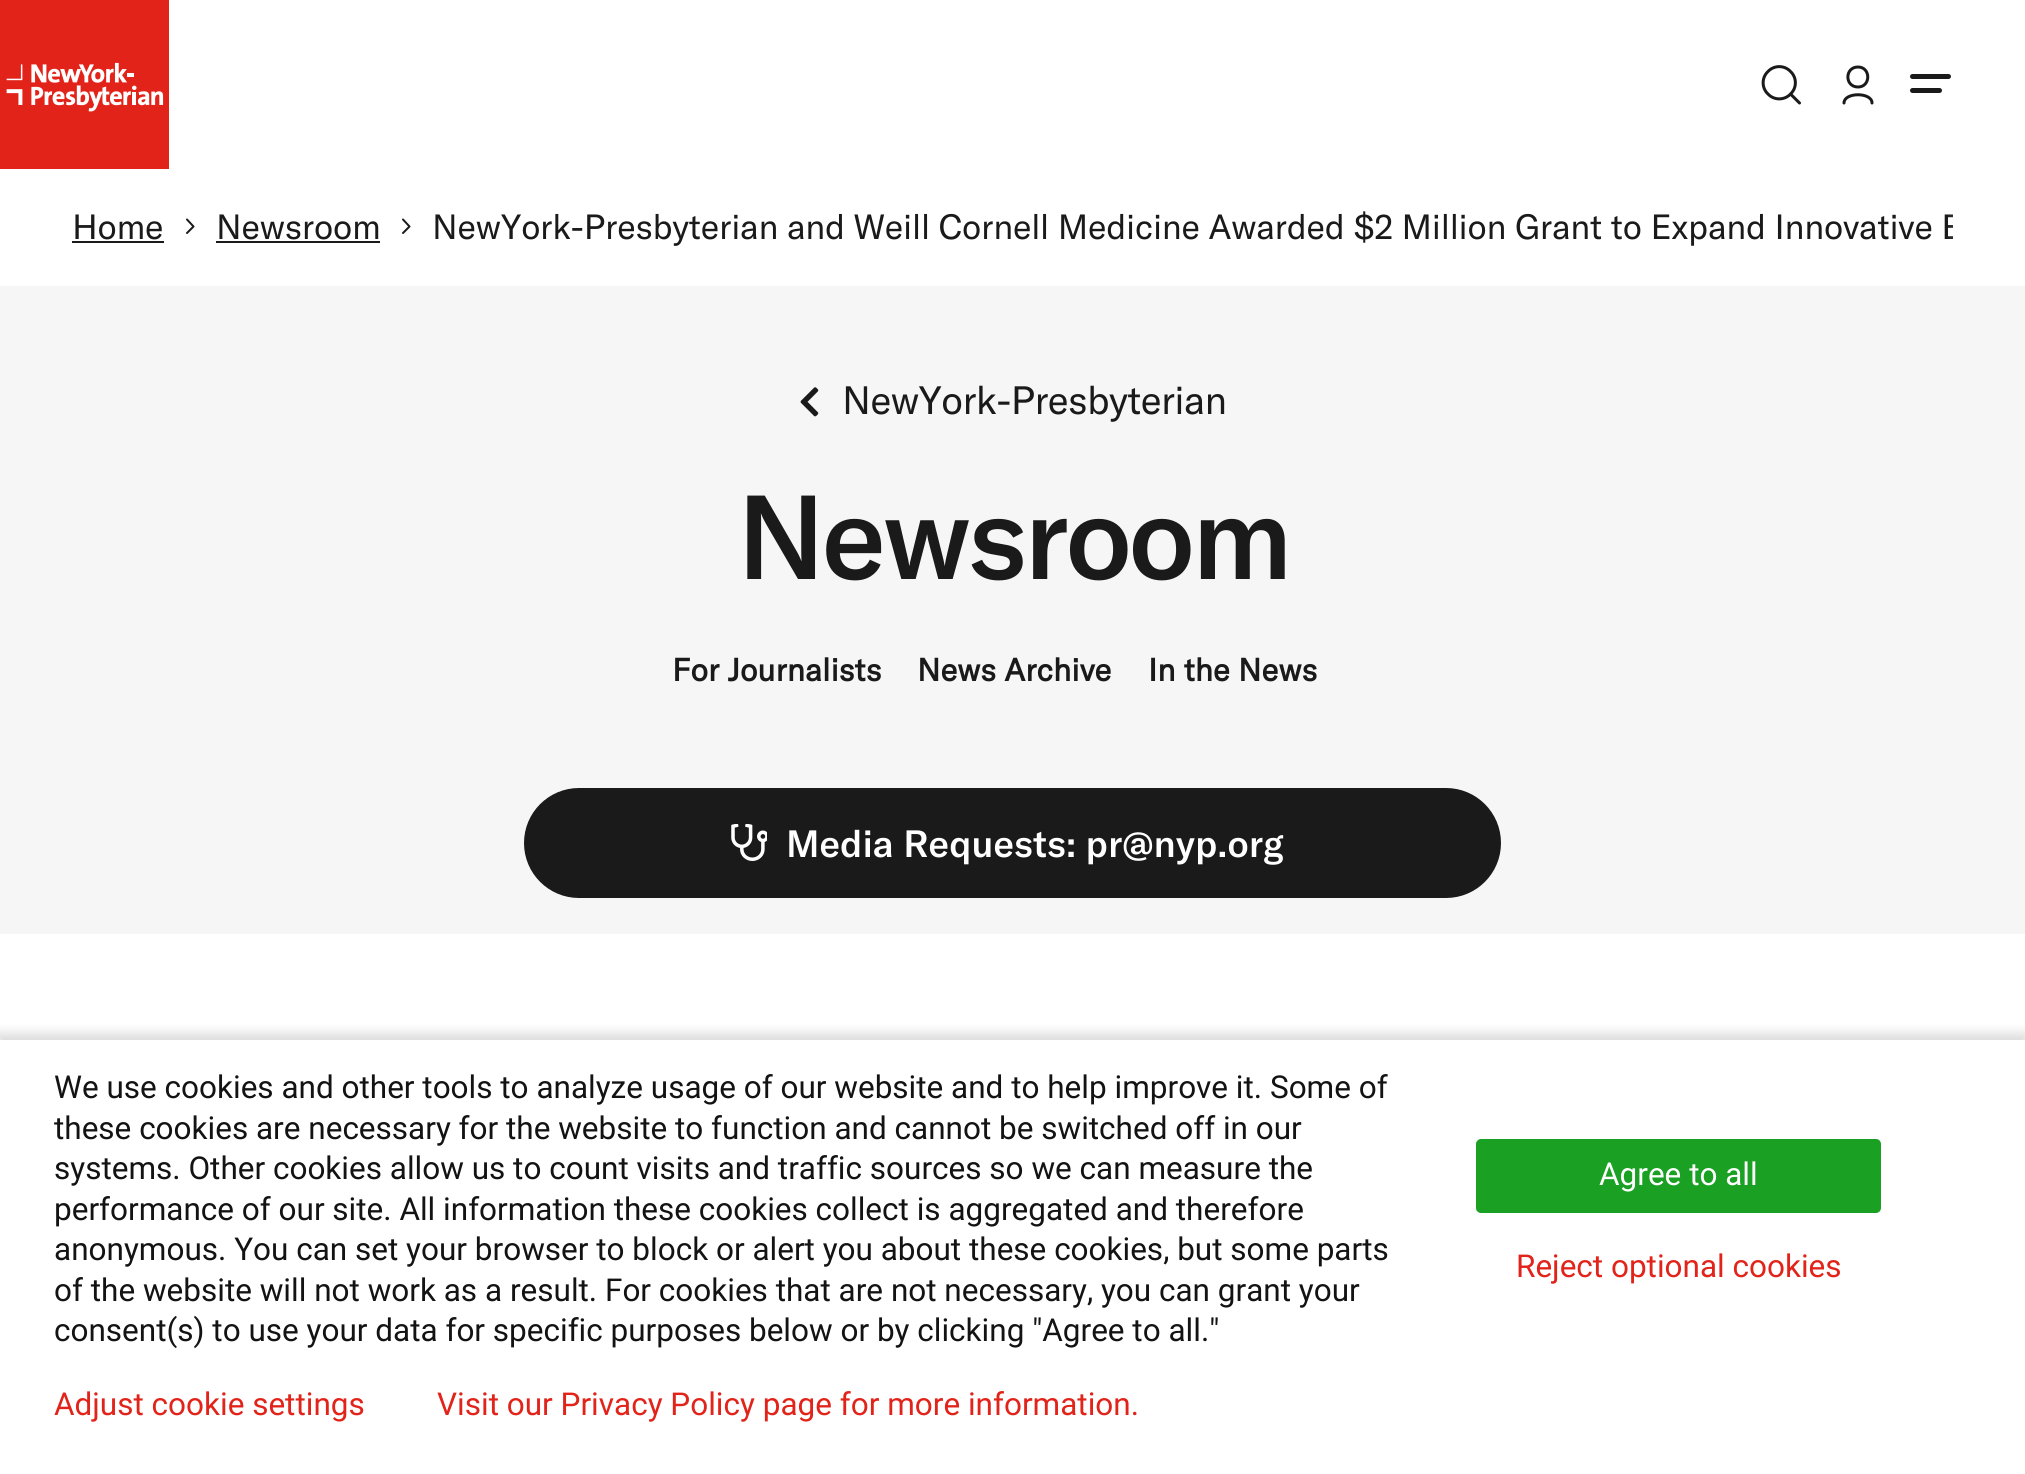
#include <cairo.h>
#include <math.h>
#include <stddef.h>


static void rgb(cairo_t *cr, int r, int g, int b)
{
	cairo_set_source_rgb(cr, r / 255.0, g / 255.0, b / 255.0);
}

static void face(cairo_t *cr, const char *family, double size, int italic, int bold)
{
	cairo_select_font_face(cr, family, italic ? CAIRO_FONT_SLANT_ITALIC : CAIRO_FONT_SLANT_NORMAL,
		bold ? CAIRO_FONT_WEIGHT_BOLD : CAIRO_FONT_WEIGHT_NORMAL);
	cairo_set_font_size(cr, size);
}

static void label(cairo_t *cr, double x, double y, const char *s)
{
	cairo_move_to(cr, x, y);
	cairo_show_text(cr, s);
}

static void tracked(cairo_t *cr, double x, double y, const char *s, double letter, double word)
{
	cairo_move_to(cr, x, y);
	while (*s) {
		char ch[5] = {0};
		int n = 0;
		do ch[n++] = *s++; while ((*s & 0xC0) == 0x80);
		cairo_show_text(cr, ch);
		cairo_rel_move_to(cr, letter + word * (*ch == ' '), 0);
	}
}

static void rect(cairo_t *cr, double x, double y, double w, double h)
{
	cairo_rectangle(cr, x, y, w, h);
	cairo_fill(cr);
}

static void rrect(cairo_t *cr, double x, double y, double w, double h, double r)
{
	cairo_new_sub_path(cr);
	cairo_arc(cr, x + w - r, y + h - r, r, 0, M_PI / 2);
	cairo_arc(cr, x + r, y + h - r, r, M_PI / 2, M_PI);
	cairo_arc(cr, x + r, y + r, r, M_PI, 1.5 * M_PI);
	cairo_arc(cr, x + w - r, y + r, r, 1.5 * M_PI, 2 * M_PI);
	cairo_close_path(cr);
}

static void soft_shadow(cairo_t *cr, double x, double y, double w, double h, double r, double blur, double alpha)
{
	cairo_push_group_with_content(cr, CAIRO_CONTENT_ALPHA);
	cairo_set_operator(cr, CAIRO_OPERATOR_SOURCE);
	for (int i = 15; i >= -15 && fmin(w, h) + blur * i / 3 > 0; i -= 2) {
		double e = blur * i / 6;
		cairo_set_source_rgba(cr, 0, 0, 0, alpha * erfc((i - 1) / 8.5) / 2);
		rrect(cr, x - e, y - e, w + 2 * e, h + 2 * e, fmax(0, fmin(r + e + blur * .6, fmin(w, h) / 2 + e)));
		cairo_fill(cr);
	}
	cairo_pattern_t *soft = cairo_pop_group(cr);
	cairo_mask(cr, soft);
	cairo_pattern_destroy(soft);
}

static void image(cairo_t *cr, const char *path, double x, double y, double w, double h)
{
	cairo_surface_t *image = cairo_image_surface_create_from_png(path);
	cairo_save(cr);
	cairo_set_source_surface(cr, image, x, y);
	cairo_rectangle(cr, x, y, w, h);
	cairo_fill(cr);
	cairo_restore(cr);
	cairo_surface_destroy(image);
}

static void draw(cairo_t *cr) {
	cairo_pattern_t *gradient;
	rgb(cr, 255, 255, 255);
	cairo_paint(cr);
	image(cr, "image0.png", 0, 0, 169, 169);
	cairo_new_path(cr);
	cairo_move_to(cr, 1799.5, 103);
	cairo_line_to(cr, 1790.5, 94);
	cairo_move_to(cr, 1790.5, 94);
	cairo_curve_to(cr, 1797, 88, 1797, 77.5, 1790.5, 71.5);
	cairo_curve_to(cr, 1784.5, 65, 1774, 65, 1768, 71.5);
	cairo_curve_to(cr, 1761.5, 77.5, 1761.5, 88, 1768, 94);
	cairo_curve_to(cr, 1774, 100.5, 1784.5, 100.5, 1790.5, 94);
	cairo_close_path(cr);
	rgb(cr, 26, 26, 26);
	cairo_set_line_width(cr, 3);
	cairo_set_line_cap(cr, CAIRO_LINE_CAP_ROUND);
	cairo_set_line_join(cr, CAIRO_LINE_JOIN_ROUND);
	cairo_stroke(cr);
	cairo_new_path(cr);
	cairo_move_to(cr, 1844, 103);
	cairo_curve_to(cr, 1844, 92, 1872, 92, 1872, 103);
	cairo_move_to(cr, 1858, 87);
	cairo_curve_to(cr, 1871, 87, 1871, 67, 1858, 67);
	cairo_curve_to(cr, 1844.5, 67, 1844.5, 87, 1858, 87);
	cairo_close_path(cr);
	cairo_stroke(cr);
	rrect(cr, 1910, 74, 41, 5, 2.5);
	cairo_fill(cr);
	rrect(cr, 1910, 88, 32, 5, 2.5);
	cairo_fill(cr);
	face(cr, "GT America", 34.55, 0, 0);
	tracked(cr, 72, 239, "Home", -0.25, 0);
	rect(cr, 72, 241, 92, 2);
	tracked(cr, 216, 239, "Newsroom", -0.25, 0);
	rect(cr, 216, 241, 164, 2);
	cairo_save(cr);
	cairo_rectangle(cr, 72, 205, 1881, 45);
	cairo_clip(cr);
	tracked(cr, 432, 239, "NewYork-Presbyterian and Weill Cornell Medicine Awarded $2 Million Grant to Expand Innovative E", -0.25, 0);
	cairo_restore(cr);
	cairo_new_path(cr);
	cairo_move_to(cr, 187, 233);
	cairo_line_to(cr, 193.5, 226.5);
	cairo_line_to(cr, 187, 219.5);
	cairo_set_line_width(cr, 2);
	cairo_stroke(cr);
	cairo_new_path(cr);
	cairo_move_to(cr, 403, 233);
	cairo_line_to(cr, 409.5, 226.5);
	cairo_line_to(cr, 403, 219.5);
	cairo_stroke(cr);
	gradient = cairo_pattern_create_linear(1946, 235, 2025, 235);
	cairo_pattern_add_color_stop_rgba(gradient, 0, 1, 1, 1, 0);
	cairo_pattern_add_color_stop_rgba(gradient, 1, 1, 1, 1, 1);
	cairo_set_source(cr, gradient);
	cairo_pattern_destroy(gradient);
	rect(cr, 1948, 214, 5, 25);
	rgb(cr, 246, 246, 246);
	rect(cr, 0, 286, 2025, 648);
	image(cr, "image1.png", 800, 387, 19, 30);
	face(cr, "GT America", 39, 0, 0);
	rgb(cr, 26, 26, 26);
	tracked(cr, 842, 414, "NewYork-Presbyterian", -0.6, 0);
	face(cr, "GT America Medium", 117.5, 0, 0);
	tracked(cr, 737, 579, "Newsroom", -3.5, 0);
	face(cr, "GT America", 31.5, 0, 1);
	label(cr, 672, 681, "For Journalists");
	label(cr, 917, 681, "News Archive");
	label(cr, 1148, 681, "In the News");
	rrect(cr, 524, 788, 977, 110, 55);
	cairo_fill(cr);
	image(cr, "image2.png", 731, 824, 36, 37);
	face(cr, "GT America Medium", 37.5, 0, 0);
	rgb(cr, 255, 255, 255);
	label(cr, 786, 857, "Media Requests: pr@nyp.org");
	rgb(cr, 0, 0, 0);
	soft_shadow(cr, -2, 1033, 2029, 441, 0, 5.5, 0.14);
	rgb(cr, 255, 255, 255);
	rect(cr, 0, 1040, 2025, 434);
	face(cr, "Roboto", 31.5, 0, 0);
	rgb(cr, 19, 19, 19);
	label(cr, 54, 1098, "We use cookies and other tools to analyze usage of our website and to help improve it. Some of");
	label(cr, 54, 1139, "these cookies are necessary for the website to function and cannot be switched off in our");
	label(cr, 54, 1179, "systems. Other cookies allow us to count visits and traffic sources so we can measure the");
	label(cr, 54, 1220, "performance of our site. All information these cookies collect is aggregated and therefore");
	label(cr, 54, 1260, "anonymous. You can set your browser to block or alert you about these cookies, but some parts");
	label(cr, 54, 1301, "of the website will not work as a result. For cookies that are not necessary, you can grant your");
	label(cr, 54, 1341, "consent(s) to use your data for specific purposes below or by clicking \"Agree to all.\"");
	rgb(cr, 26, 160, 35);
	rrect(cr, 1477, 1140, 403, 72, 4);
	cairo_fill_preserve(cr);
	cairo_set_line_cap(cr, CAIRO_LINE_CAP_BUTT);
	cairo_set_line_join(cr, CAIRO_LINE_JOIN_MITER);
	cairo_stroke(cr);
	rgb(cr, 255, 255, 255);
	label(cr, 1599, 1185, "Agree to all");
	rgb(cr, 226, 35, 26);
	label(cr, 1516, 1277, "Reject optional cookies");
	label(cr, 54, 1415, "Adjust cookie settings");
	label(cr, 437, 1415, "Visit our Privacy Policy page for more information.");
}

int main(void) {
	cairo_surface_t *surface = cairo_image_surface_create(CAIRO_FORMAT_RGB24, 2025, 1474);
	cairo_t *cr = cairo_create(surface);
	cairo_font_options_t *options = cairo_font_options_create();
	cairo_font_options_set_hint_metrics(options, CAIRO_HINT_METRICS_OFF);
	cairo_font_options_set_hint_style(options, CAIRO_HINT_STYLE_NONE);
	cairo_set_font_options(cr, options);
	cairo_set_miter_limit(cr, 4);
	draw(cr);
	cairo_surface_write_to_png(surface, "render.png");
	cairo_font_options_destroy(options);
	cairo_destroy(cr);
	cairo_surface_destroy(surface);
	return 0;
}
